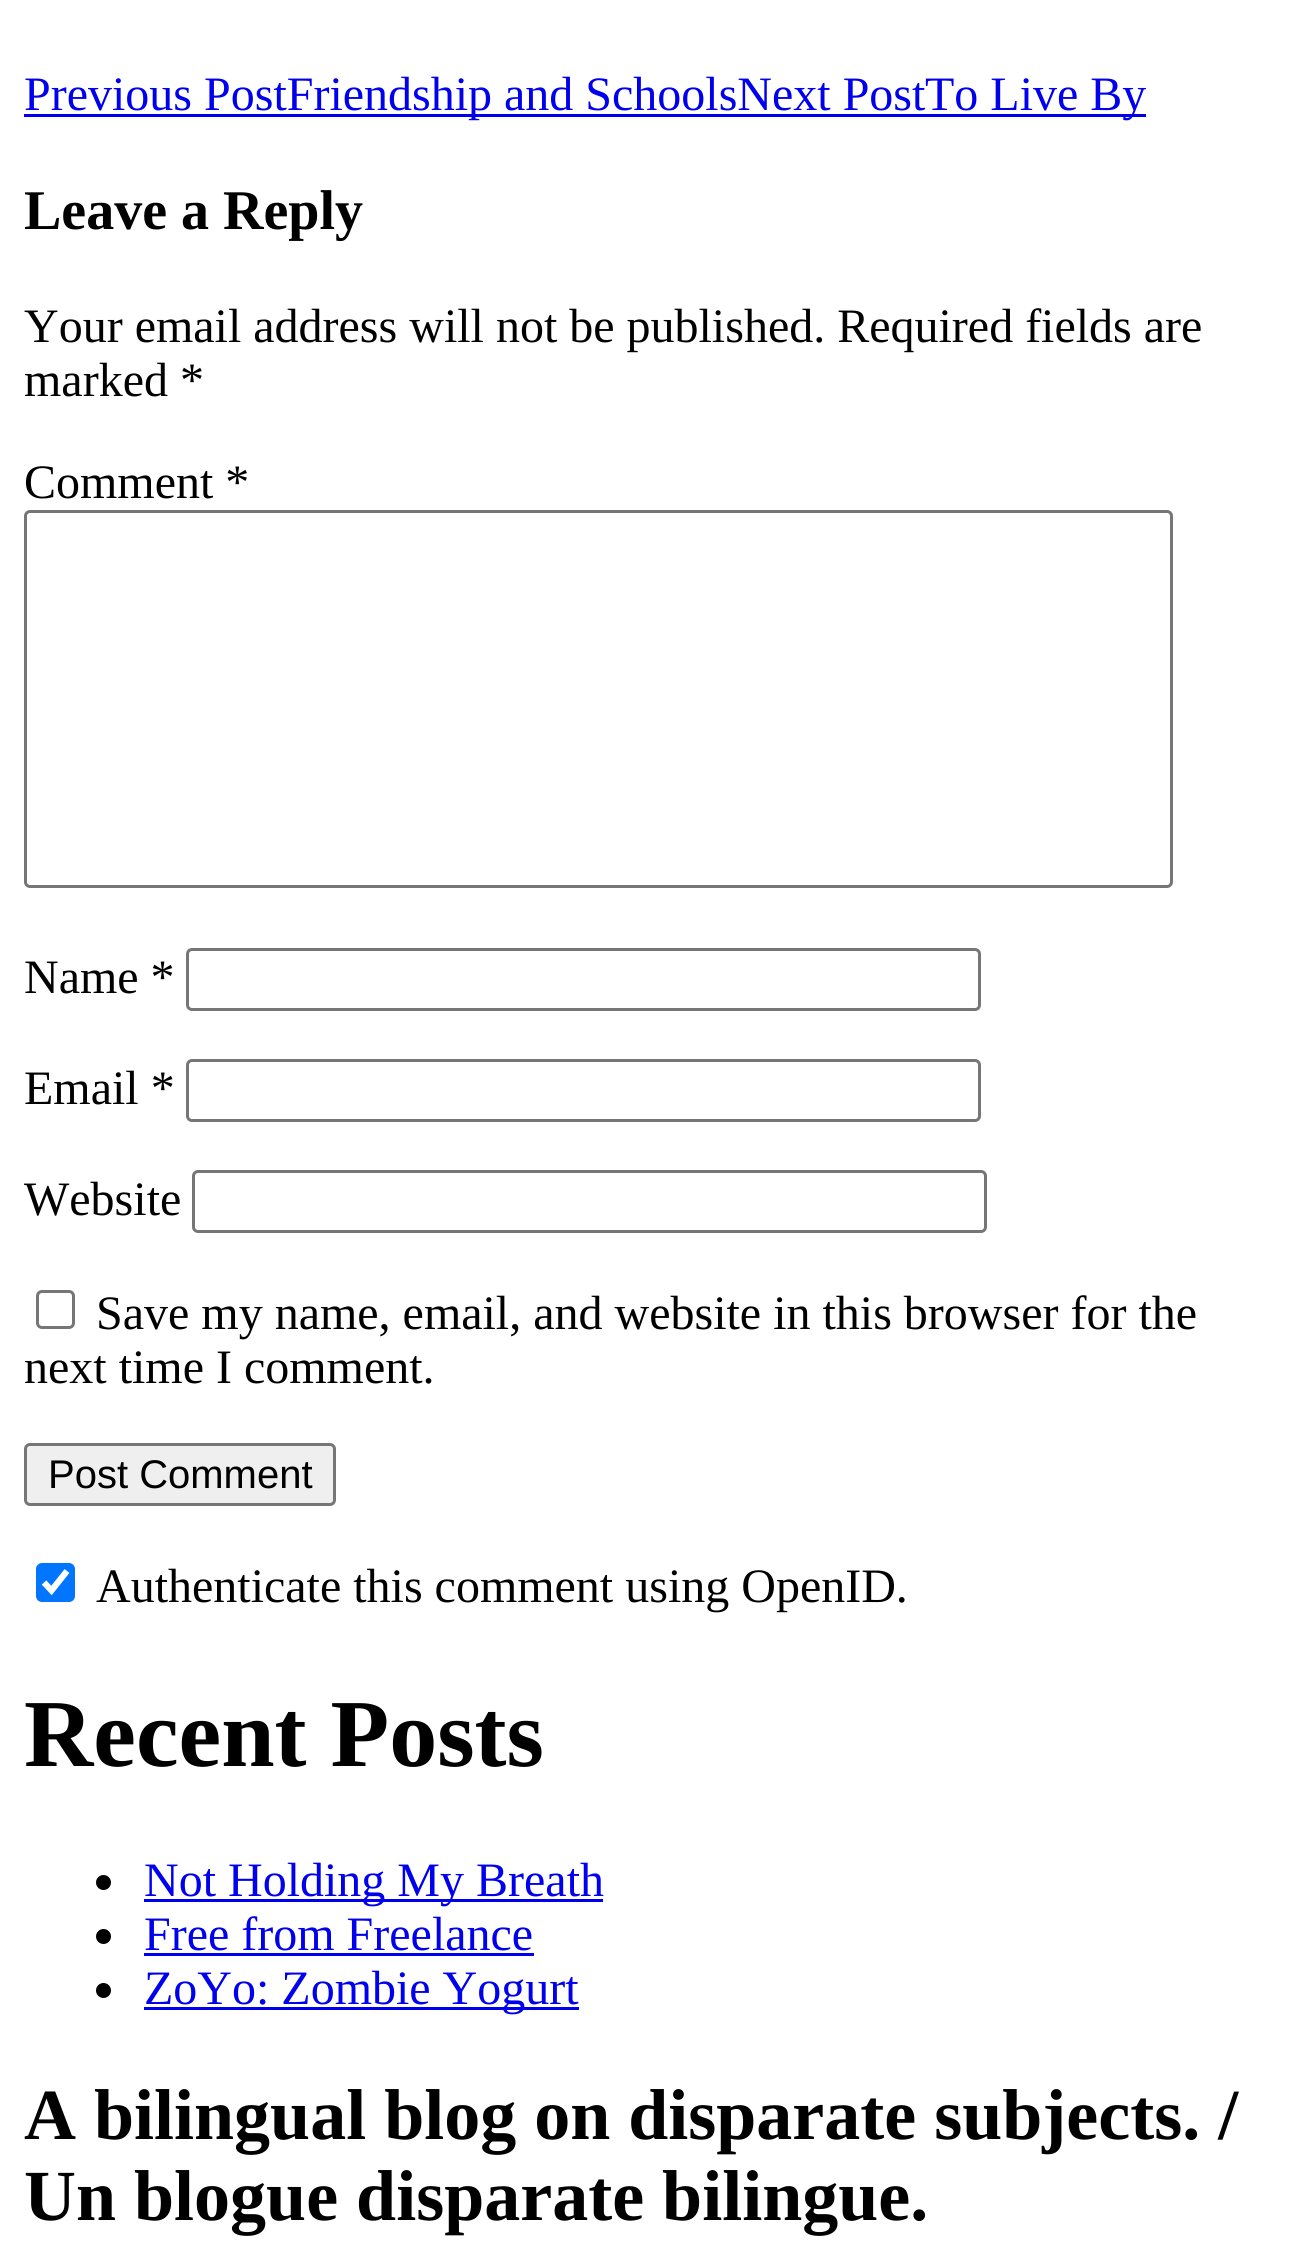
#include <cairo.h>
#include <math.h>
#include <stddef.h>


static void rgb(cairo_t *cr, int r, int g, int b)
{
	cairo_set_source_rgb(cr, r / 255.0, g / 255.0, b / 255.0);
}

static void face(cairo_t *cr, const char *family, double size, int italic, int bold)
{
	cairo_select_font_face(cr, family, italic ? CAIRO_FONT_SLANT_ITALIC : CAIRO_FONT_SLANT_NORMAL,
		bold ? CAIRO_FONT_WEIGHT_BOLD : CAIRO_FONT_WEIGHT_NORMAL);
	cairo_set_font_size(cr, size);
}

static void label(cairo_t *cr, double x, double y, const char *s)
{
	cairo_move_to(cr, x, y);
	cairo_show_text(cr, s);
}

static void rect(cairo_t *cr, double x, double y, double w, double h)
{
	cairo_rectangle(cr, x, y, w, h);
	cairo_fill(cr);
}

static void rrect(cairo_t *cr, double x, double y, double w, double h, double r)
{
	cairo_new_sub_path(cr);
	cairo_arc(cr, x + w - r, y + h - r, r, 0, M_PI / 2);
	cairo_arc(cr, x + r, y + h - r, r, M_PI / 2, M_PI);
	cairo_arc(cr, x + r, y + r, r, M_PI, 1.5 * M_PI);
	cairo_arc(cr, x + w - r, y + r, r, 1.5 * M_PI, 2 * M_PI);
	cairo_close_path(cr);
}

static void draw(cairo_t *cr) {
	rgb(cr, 255, 255, 255);
	cairo_paint(cr);
	rgb(cr, 0, 0, 238);
	rect(cr, 24, 114, 900, 3);
	face(cr, "Liberation Serif", 48, 0, 0);
	label(cr, 24, 110, "Previous PostFriendship and SchoolsNext Post");
	rect(cr, 924, 114, 222, 3);
	label(cr, 925, 110, "To Live By");
	face(cr, "Liberation Serif", 56, 0, 1);
	rgb(cr, 0, 0, 0);
	label(cr, 24, 229, "Leave a Reply");
	face(cr, "Liberation Serif", 48, 0, 0);
	label(cr, 24, 342, "Your email address will not be published. Required fields are");
	label(cr, 24, 396, "marked *");
	label(cr, 24, 498, "Comment *");
	rrect(cr, 25.5, 511.5, 1146, 375, 4.5);
	rgb(cr, 118, 118, 118);
	cairo_set_line_width(cr, 3);
	cairo_stroke(cr);
	rgb(cr, 0, 0, 0);
	label(cr, 24, 993, "Name *");
	rrect(cr, 187.5, 949.5, 792, 60, 4.5);
	rgb(cr, 118, 118, 118);
	cairo_stroke(cr);
	rgb(cr, 0, 0, 0);
	label(cr, 24, 1104, "Email *");
	rrect(cr, 187.5, 1060.5, 792, 60, 4.5);
	rgb(cr, 118, 118, 118);
	cairo_stroke(cr);
	rgb(cr, 0, 0, 0);
	label(cr, 24, 1215, "Website");
	rrect(cr, 193.5, 1171.5, 792, 60, 4.5);
	rgb(cr, 118, 118, 118);
	cairo_stroke(cr);
	rrect(cr, 37.5, 1291.5, 36, 36, 4.5);
	cairo_stroke(cr);
	rgb(cr, 0, 0, 0);
	label(cr, 96, 1329, "Save my name, email, and website in this browser for the");
	label(cr, 24, 1383, "next time I comment.");
	rgb(cr, 239, 239, 239);
	rrect(cr, 25.5, 1444.5, 309, 60, 4.5);
	cairo_fill_preserve(cr);
	rgb(cr, 118, 118, 118);
	cairo_stroke(cr);
	face(cr, "Liberation Sans", 40, 0, 0);
	rgb(cr, 0, 0, 0);
	label(cr, 48, 1488, "Post Comment");
	rgb(cr, 0, 117, 255);
	rrect(cr, 36, 1563, 39, 39, 6);
	cairo_fill(cr);
	cairo_new_path(cr);
	cairo_move_to(cr, 44, 1582.5);
	cairo_line_to(cr, 51.5, 1590.5);
	cairo_line_to(cr, 67, 1571);
	rgb(cr, 255, 255, 255);
	cairo_set_line_width(cr, 6.2);
	cairo_stroke(cr);
	face(cr, "Liberation Serif", 48, 0, 0);
	rgb(cr, 0, 0, 0);
	label(cr, 96, 1602, "Authenticate this comment using OpenID.");
	face(cr, "Liberation Serif", 96, 0, 1);
	label(cr, 24, 1766, "Recent Posts");
	cairo_new_path(cr);
	cairo_arc(cr, 103.5, 1882.5, 7.5, 0, 2 * M_PI);
	cairo_fill(cr);
	rgb(cr, 0, 0, 238);
	rect(cr, 144, 1899, 459, 3);
	face(cr, "Liberation Serif", 48, 0, 0);
	label(cr, 144, 1896, "Not Holding My Breath");
	rgb(cr, 0, 0, 0);
	cairo_new_path(cr);
	cairo_arc(cr, 103.5, 1936.5, 7.5, 0, 2 * M_PI);
	cairo_fill(cr);
	rgb(cr, 0, 0, 238);
	label(cr, 144, 1950, "Free from Freelance");
	rect(cr, 144, 1953, 390, 3);
	rgb(cr, 0, 0, 0);
	cairo_new_path(cr);
	cairo_arc(cr, 103.5, 1990.5, 7.5, 0, 2 * M_PI);
	cairo_fill(cr);
	rgb(cr, 0, 0, 238);
	rect(cr, 144, 2007, 435, 3);
	label(cr, 144, 2004, "ZoYo: Zombie Yogurt");
	face(cr, "Liberation Serif", 72, 0, 1);
	rgb(cr, 0, 0, 0);
	label(cr, 24, 2139, "A bilingual blog on disparate subjects. /");
	label(cr, 24, 2220, "Un blogue disparate bilingue.");
}

int main(void) {
	cairo_surface_t *surface = cairo_image_surface_create(CAIRO_FORMAT_RGB24, 1290, 2260);
	cairo_t *cr = cairo_create(surface);
	cairo_font_options_t *options = cairo_font_options_create();
	cairo_font_options_set_hint_metrics(options, CAIRO_HINT_METRICS_OFF);
	cairo_font_options_set_hint_style(options, CAIRO_HINT_STYLE_NONE);
	cairo_set_font_options(cr, options);
	cairo_set_miter_limit(cr, 4);
	draw(cr);
	cairo_surface_write_to_png(surface, "render.png");
	cairo_font_options_destroy(options);
	cairo_destroy(cr);
	cairo_surface_destroy(surface);
	return 0;
}
